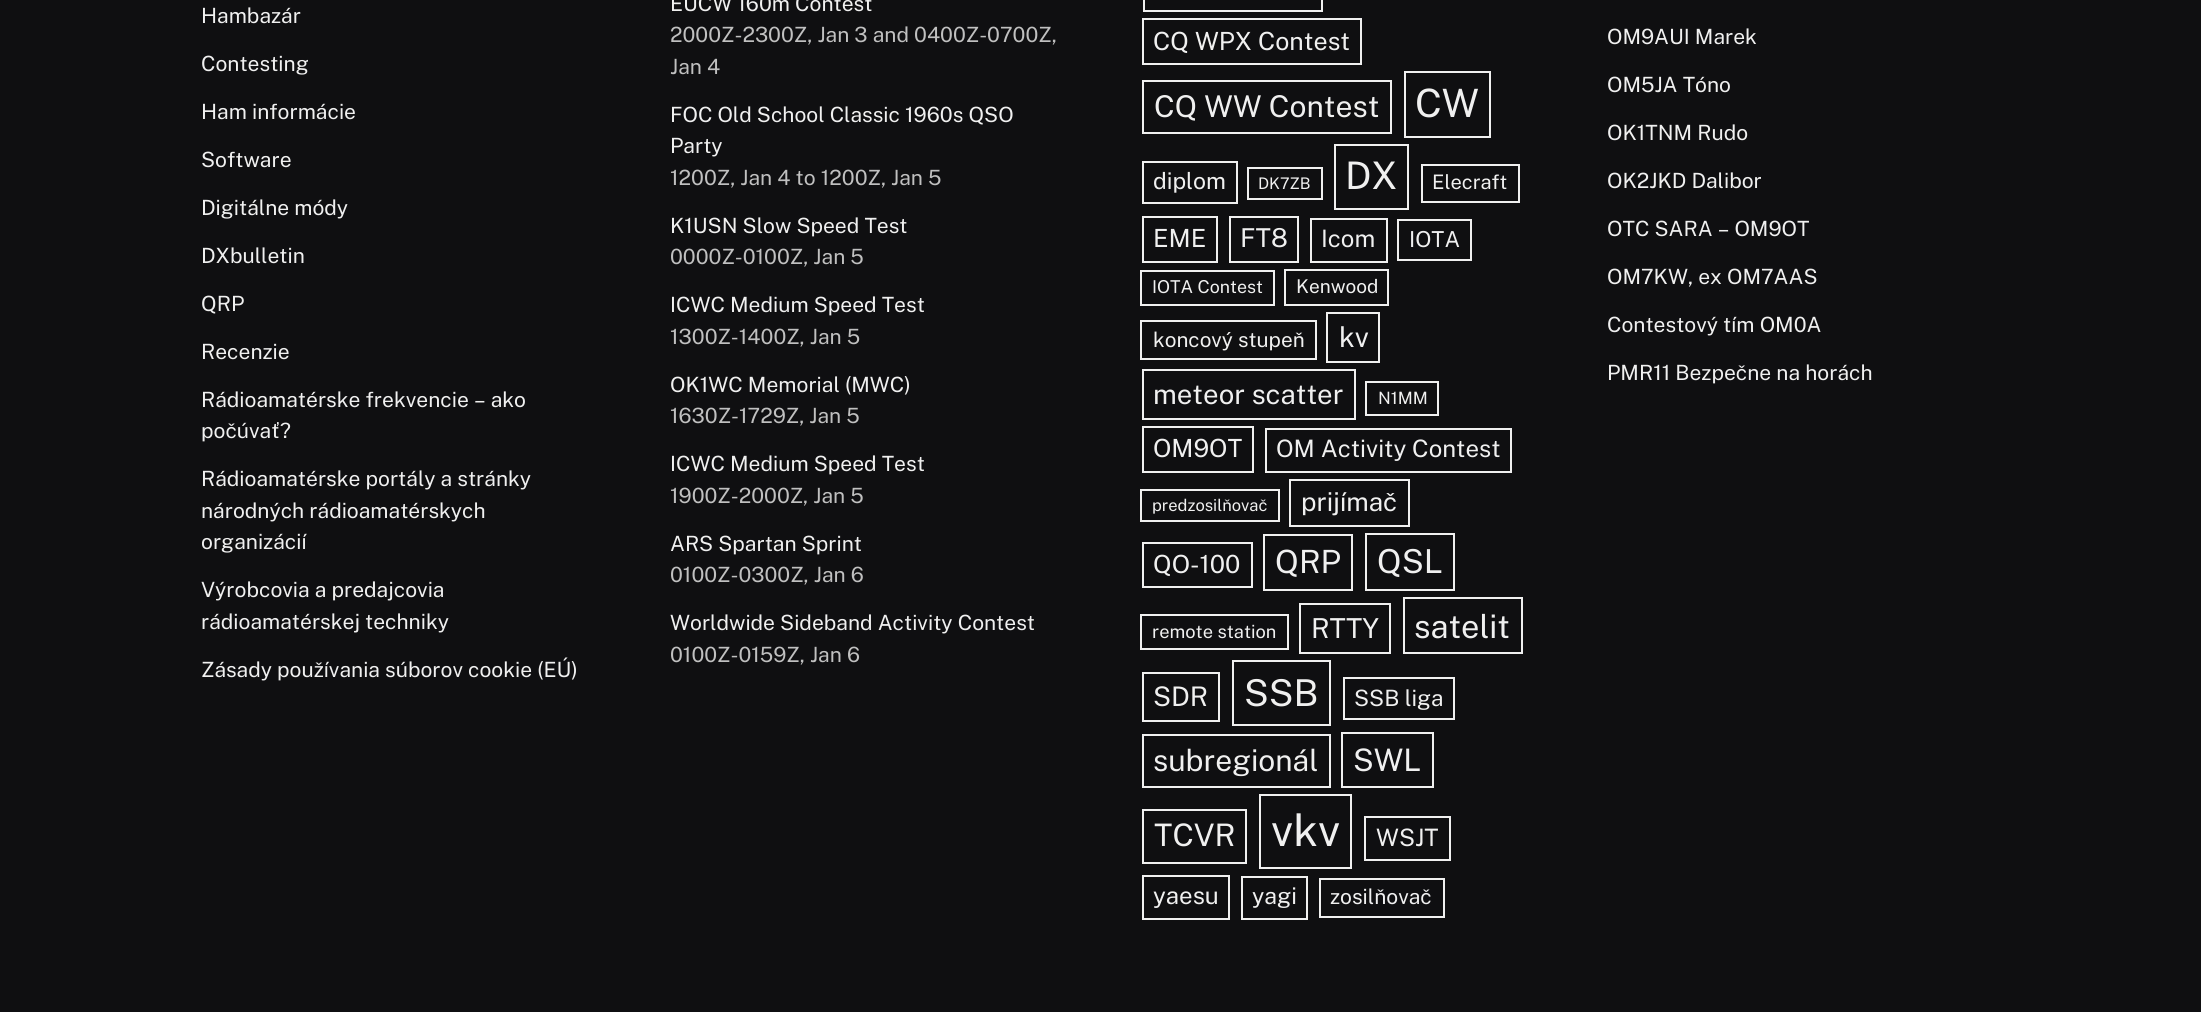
#include <cairo.h>
#include <math.h>
#include <stddef.h>


static void rgb(cairo_t *cr, int r, int g, int b)
{
	cairo_set_source_rgb(cr, r / 255.0, g / 255.0, b / 255.0);
}

static void face(cairo_t *cr, const char *family, double size, int italic, int bold)
{
	cairo_select_font_face(cr, family, italic ? CAIRO_FONT_SLANT_ITALIC : CAIRO_FONT_SLANT_NORMAL,
		bold ? CAIRO_FONT_WEIGHT_BOLD : CAIRO_FONT_WEIGHT_NORMAL);
	cairo_set_font_size(cr, size);
}

static void label(cairo_t *cr, double x, double y, const char *s)
{
	cairo_move_to(cr, x, y);
	cairo_show_text(cr, s);
}

static void draw(cairo_t *cr) {
	rgb(cr, 15, 15, 17);
	cairo_paint(cr);
	face(cr, "Public Sans", 21, 0, 0);
	rgb(cr, 240, 240, 240);
	label(cr, 201, 23, "Hambazár");
	label(cr, 201, 71, "Contesting");
	label(cr, 201, 119, "Ham informácie");
	label(cr, 201, 167, "Software");
	label(cr, 201, 215, "Digitálne módy");
	label(cr, 201, 263, "DXbulletin");
	label(cr, 201, 311, "QRP");
	label(cr, 201, 359, "Recenzie");
	label(cr, 201, 407, "Rádioamatérske frekvencie – ako");
	label(cr, 201, 438, "počúvať?");
	label(cr, 201, 486, "Rádioamatérske portály a stránky");
	label(cr, 201, 518, "národných rádioamatérskych");
	label(cr, 201, 549, "organizácií");
	label(cr, 201, 597, "Výrobcovia a predajcovia");
	label(cr, 201, 629, "rádioamatérskej techniky");
	label(cr, 201, 677, "Zásady používania súborov cookie (EÚ)");
	label(cr, 670, 11, "EUCW 160m Contest");
	rgb(cr, 192, 192, 192);
	label(cr, 670, 42, "2000Z-2300Z, Jan 3 and 0400Z-0700Z,");
	label(cr, 670, 74, "Jan 4");
	rgb(cr, 240, 240, 240);
	label(cr, 670, 122, "FOC Old School Classic 1960s QSO");
	label(cr, 670, 153, "Party");
	rgb(cr, 192, 192, 192);
	label(cr, 670, 185, "1200Z, Jan 4 to 1200Z, Jan 5");
	rgb(cr, 240, 240, 240);
	label(cr, 670, 233, "K1USN Slow Speed Test");
	rgb(cr, 192, 192, 192);
	label(cr, 670, 264, "0000Z-0100Z, Jan 5");
	rgb(cr, 240, 240, 240);
	label(cr, 670, 312, "ICWC Medium Speed Test");
	rgb(cr, 192, 192, 192);
	label(cr, 670, 344, "1300Z-1400Z, Jan 5");
	rgb(cr, 240, 240, 240);
	label(cr, 670, 392, "OK1WC Memorial (MWC)");
	rgb(cr, 192, 192, 192);
	label(cr, 670, 423, "1630Z-1729Z, Jan 5");
	rgb(cr, 240, 240, 240);
	label(cr, 670, 471, "ICWC Medium Speed Test");
	rgb(cr, 192, 192, 192);
	label(cr, 670, 503, "1900Z-2000Z, Jan 5");
	rgb(cr, 240, 240, 240);
	label(cr, 670, 551, "ARS Spartan Sprint");
	rgb(cr, 192, 192, 192);
	label(cr, 670, 582, "0100Z-0300Z, Jan 6");
	rgb(cr, 240, 240, 240);
	label(cr, 670, 630, "Worldwide Sideband Activity Contest");
	rgb(cr, 192, 192, 192);
	label(cr, 670, 662, "0100Z-0159Z, Jan 6");
	cairo_rectangle(cr, 1144, -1, 178, 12);
	rgb(cr, 240, 240, 240);
	cairo_stroke(cr);
	cairo_rectangle(cr, 1143, 19, 218, 45);
	cairo_stroke(cr);
	face(cr, "Public Sans", 25, 0, 0);
	label(cr, 1153, 50, "CQ WPX Contest");
	cairo_rectangle(cr, 1143, 81, 248, 52);
	cairo_stroke(cr);
	face(cr, "Public Sans", 30, 0, 0);
	label(cr, 1154, 117, "CQ WW Contest");
	cairo_rectangle(cr, 1405, 72, 85, 65);
	cairo_stroke(cr);
	face(cr, "Public Sans", 39, 0, 0);
	label(cr, 1415, 117, "CW");
	cairo_rectangle(cr, 1143, 162, 94, 41);
	cairo_stroke(cr);
	face(cr, "Public Sans", 23, 0, 0);
	label(cr, 1153, 189, "diplom");
	cairo_rectangle(cr, 1248, 168, 74, 31);
	cairo_stroke(cr);
	face(cr, "Public Sans", 16, 0, 0);
	label(cr, 1258, 189, "DK7ZB");
	cairo_rectangle(cr, 1335, 145, 73, 64);
	cairo_stroke(cr);
	face(cr, "Public Sans", 38, 0, 0);
	label(cr, 1345, 189, "DX");
	cairo_rectangle(cr, 1422, 165, 97, 37);
	cairo_stroke(cr);
	face(cr, "Public Sans", 20, 0, 0);
	label(cr, 1432, 189, "Elecraft");
	cairo_rectangle(cr, 1143, 217, 74, 45);
	cairo_stroke(cr);
	face(cr, "Public Sans", 25, 0, 0);
	label(cr, 1153, 247, "EME");
	cairo_rectangle(cr, 1230, 217, 68, 45);
	cairo_stroke(cr);
	face(cr, "Public Sans", 26, 0, 0);
	label(cr, 1240, 247, "FT8");
	cairo_rectangle(cr, 1311, 219, 76, 43);
	cairo_stroke(cr);
	face(cr, "Public Sans", 24, 0, 0);
	label(cr, 1321, 247, "Icom");
	cairo_rectangle(cr, 1398, 220, 73, 40);
	cairo_stroke(cr);
	face(cr, "Public Sans", 22, 0, 0);
	label(cr, 1409, 247, "IOTA");
	cairo_rectangle(cr, 1141, 271, 133, 34);
	cairo_stroke(cr);
	face(cr, "Public Sans", 17.75, 0, 0);
	label(cr, 1152, 293, "IOTA Contest");
	cairo_rectangle(cr, 1285, 270, 103, 35);
	cairo_stroke(cr);
	face(cr, "Public Sans", 19, 0, 0);
	label(cr, 1296, 293, "Kenwood");
	cairo_rectangle(cr, 1141, 321, 175, 38);
	cairo_stroke(cr);
	face(cr, "Public Sans", 20.75, 0, 0);
	label(cr, 1153, 347, "koncový stupeň");
	cairo_rectangle(cr, 1327, 313, 52, 49);
	cairo_stroke(cr);
	face(cr, "Public Sans", 28, 0, 0);
	label(cr, 1339, 347, "kv");
	cairo_rectangle(cr, 1143, 370, 212, 49);
	cairo_stroke(cr);
	face(cr, "Public Sans", 27.5, 0, 0);
	label(cr, 1153, 404, "meteor scatter");
	cairo_rectangle(cr, 1366, 382, 72, 33);
	cairo_stroke(cr);
	face(cr, "Public Sans", 17, 0, 0);
	label(cr, 1378, 404, "N1MM");
	cairo_rectangle(cr, 1143, 427, 110, 45);
	cairo_stroke(cr);
	face(cr, "Public Sans", 25, 0, 0);
	label(cr, 1153, 457, "OM9OT");
	cairo_rectangle(cr, 1266, 429, 245, 43);
	cairo_stroke(cr);
	face(cr, "Public Sans", 24, 0, 0);
	label(cr, 1276, 457, "OM Activity Contest");
	cairo_rectangle(cr, 1141, 490, 138, 31);
	cairo_stroke(cr);
	face(cr, "Public Sans", 16.5, 0, 0);
	label(cr, 1152, 511, "predzosilňovač");
	cairo_rectangle(cr, 1290, 480, 119, 46);
	cairo_stroke(cr);
	face(cr, "Public Sans", 26, 0, 0);
	label(cr, 1301, 511, "prijímač");
	cairo_rectangle(cr, 1143, 543, 109, 44);
	cairo_stroke(cr);
	face(cr, "Public Sans", 25, 0, 0);
	label(cr, 1153, 573, "QO-100");
	cairo_rectangle(cr, 1264, 535, 88, 55);
	cairo_stroke(cr);
	face(cr, "Public Sans", 32, 0, 0);
	label(cr, 1275, 573, "QRP");
	cairo_rectangle(cr, 1366, 534, 88, 56);
	cairo_stroke(cr);
	face(cr, "Public Sans", 33, 0, 0);
	label(cr, 1377, 573, "QSL");
	cairo_rectangle(cr, 1141, 615, 147, 34);
	cairo_stroke(cr);
	face(cr, "Public Sans", 18.25, 0, 0);
	label(cr, 1152, 638, "remote station");
	cairo_rectangle(cr, 1300, 604, 90, 49);
	cairo_stroke(cr);
	face(cr, "Public Sans", 27.5, 0, 0);
	label(cr, 1311, 638, "RTTY");
	cairo_rectangle(cr, 1404, 598, 118, 55);
	cairo_stroke(cr);
	face(cr, "Public Sans", 32.5, 0, 0);
	label(cr, 1414, 638, "satelit");
	cairo_rectangle(cr, 1143, 673, 76, 48);
	cairo_stroke(cr);
	face(cr, "Public Sans", 27, 0, 0);
	label(cr, 1153, 706, "SDR");
	cairo_rectangle(cr, 1233, 661, 97, 64);
	cairo_stroke(cr);
	face(cr, "Public Sans", 37, 0, 0);
	label(cr, 1244, 706, "SSB");
	cairo_rectangle(cr, 1344, 678, 110, 41);
	cairo_stroke(cr);
	face(cr, "Public Sans", 22.5, 0, 0);
	label(cr, 1354, 706, "SSB liga");
	cairo_rectangle(cr, 1143, 735, 187, 52);
	cairo_stroke(cr);
	face(cr, "Public Sans", 30, 0, 0);
	label(cr, 1153, 771, "subregionál");
	cairo_rectangle(cr, 1342, 733, 91, 54);
	cairo_stroke(cr);
	face(cr, "Public Sans", 31, 0, 0);
	label(cr, 1353, 771, "SWL");
	cairo_rectangle(cr, 1143, 810, 103, 53);
	cairo_stroke(cr);
	label(cr, 1154, 846, "TCVR");
	cairo_rectangle(cr, 1260, 795, 91, 73);
	cairo_stroke(cr);
	face(cr, "Public Sans", 44, 0, 0);
	label(cr, 1271, 846, "vkv");
	cairo_rectangle(cr, 1365, 817, 85, 43);
	cairo_stroke(cr);
	face(cr, "Public Sans", 24, 0, 0);
	label(cr, 1376, 846, "WSJT");
	cairo_rectangle(cr, 1143, 876, 86, 43);
	cairo_stroke(cr);
	label(cr, 1153, 904, "yaesu");
	cairo_rectangle(cr, 1242, 877, 65, 42);
	cairo_stroke(cr);
	face(cr, "Public Sans", 23, 0, 0);
	label(cr, 1252, 904, "yagi");
	cairo_rectangle(cr, 1320, 879, 124, 38);
	cairo_stroke(cr);
	face(cr, "Public Sans", 21, 0, 0);
	label(cr, 1330, 904, "zosilňovač");
	label(cr, 1607, 44, "OM9AUI Marek");
	label(cr, 1607, 92, "OM5JA Tóno");
	label(cr, 1607, 140, "OK1TNM Rudo");
	label(cr, 1607, 188, "OK2JKD Dalibor");
	label(cr, 1607, 236, "OTC SARA – OM9OT");
	label(cr, 1607, 284, "OM7KW, ex OM7AAS");
	label(cr, 1607, 332, "Contestový tím OM0A");
	label(cr, 1607, 380, "PMR11 Bezpečne na horách");
}

int main(void) {
	cairo_surface_t *surface = cairo_image_surface_create(CAIRO_FORMAT_RGB24, 2201, 1012);
	cairo_t *cr = cairo_create(surface);
	cairo_font_options_t *options = cairo_font_options_create();
	cairo_font_options_set_hint_metrics(options, CAIRO_HINT_METRICS_OFF);
	cairo_font_options_set_hint_style(options, CAIRO_HINT_STYLE_NONE);
	cairo_set_font_options(cr, options);
	cairo_set_miter_limit(cr, 4);
	draw(cr);
	cairo_surface_write_to_png(surface, "render.png");
	cairo_font_options_destroy(options);
	cairo_destroy(cr);
	cairo_surface_destroy(surface);
	return 0;
}
